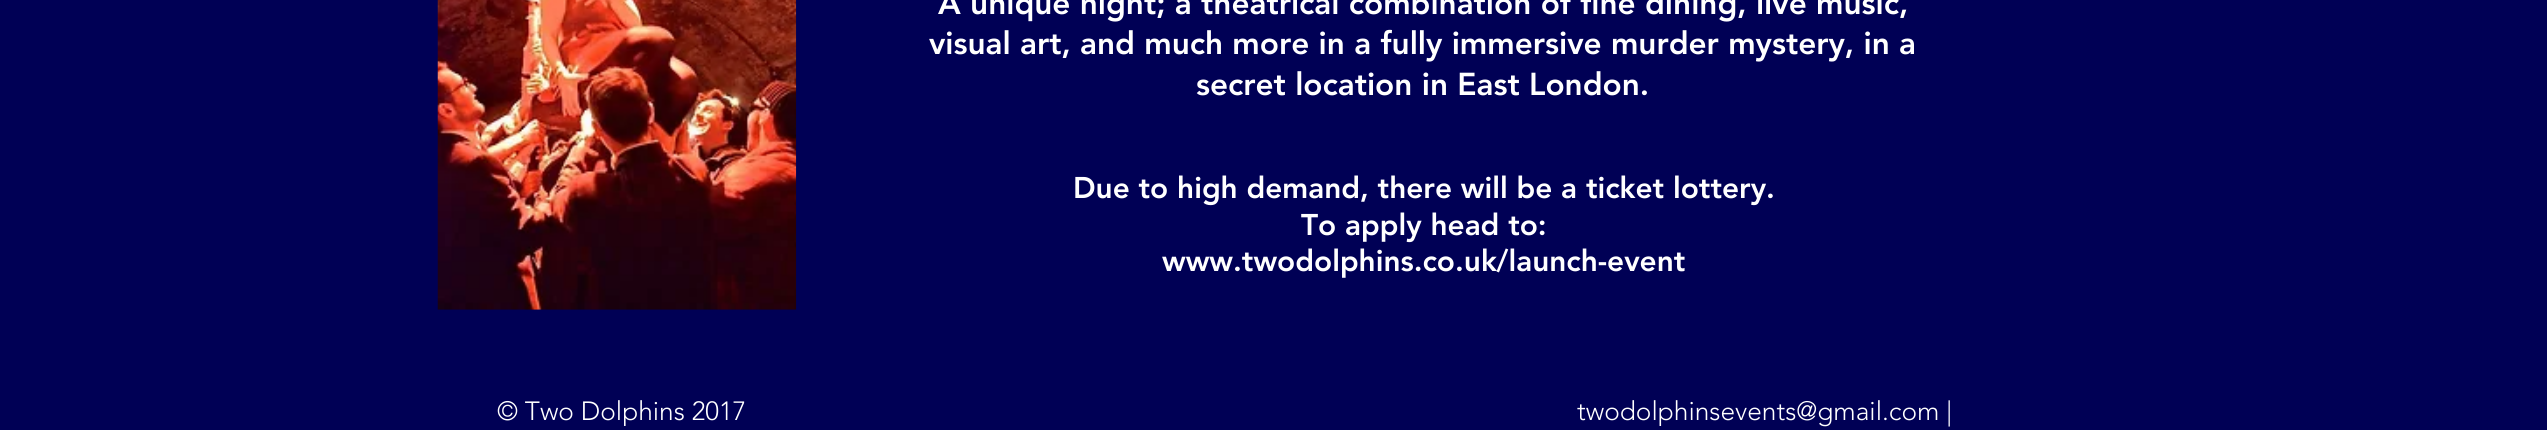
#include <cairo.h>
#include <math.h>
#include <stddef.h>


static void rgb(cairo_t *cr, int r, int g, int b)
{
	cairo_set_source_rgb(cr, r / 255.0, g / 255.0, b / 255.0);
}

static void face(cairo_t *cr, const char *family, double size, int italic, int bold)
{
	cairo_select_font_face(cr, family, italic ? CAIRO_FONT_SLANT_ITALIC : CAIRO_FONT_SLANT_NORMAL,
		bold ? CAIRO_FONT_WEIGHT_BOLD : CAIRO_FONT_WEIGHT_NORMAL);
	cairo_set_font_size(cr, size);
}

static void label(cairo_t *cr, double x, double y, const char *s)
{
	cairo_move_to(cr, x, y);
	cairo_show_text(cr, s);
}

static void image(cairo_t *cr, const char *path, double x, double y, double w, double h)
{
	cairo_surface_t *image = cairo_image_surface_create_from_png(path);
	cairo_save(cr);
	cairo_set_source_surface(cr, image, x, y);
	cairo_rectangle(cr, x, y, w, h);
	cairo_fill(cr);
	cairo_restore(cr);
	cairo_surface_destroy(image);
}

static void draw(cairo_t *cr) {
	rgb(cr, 0, 0, 85);
	cairo_paint(cr);
	image(cr, "image0.png", 437, 0, 360, 310);
	face(cr, "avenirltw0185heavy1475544 Black", 31.5, 0, 0);
	rgb(cr, 255, 255, 255);
	label(cr, 938, 14, "A unique night; a theatrical combination of fine dining, live music,");
	label(cr, 929, 54, "visual art, and much more in a fully immersive murder mystery, in a");
	label(cr, 1196, 95, "secret location in East London.");
	face(cr, "avenirltw0185heavy1475544 Black", 29.75, 0, 0);
	label(cr, 1073, 198, "Due to high demand, there will be a ticket lottery.");
	label(cr, 1301, 235, "To apply head to:");
	label(cr, 1162, 271, "www.twodolphins.co.uk/launch-event");
	face(cr, "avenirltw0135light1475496 Light", 26.25, 0, 0);
	label(cr, 497, 420, "© Two Dolphins 2017");
	label(cr, 1577, 420, "twodolphinsevents@gmail.com |");
}

int main(void) {
	cairo_surface_t *surface = cairo_image_surface_create(CAIRO_FORMAT_RGB24, 2547, 430);
	cairo_t *cr = cairo_create(surface);
	cairo_font_options_t *options = cairo_font_options_create();
	cairo_font_options_set_hint_metrics(options, CAIRO_HINT_METRICS_OFF);
	cairo_font_options_set_hint_style(options, CAIRO_HINT_STYLE_NONE);
	cairo_set_font_options(cr, options);
	cairo_set_miter_limit(cr, 4);
	draw(cr);
	cairo_surface_write_to_png(surface, "render.png");
	cairo_font_options_destroy(options);
	cairo_destroy(cr);
	cairo_surface_destroy(surface);
	return 0;
}
